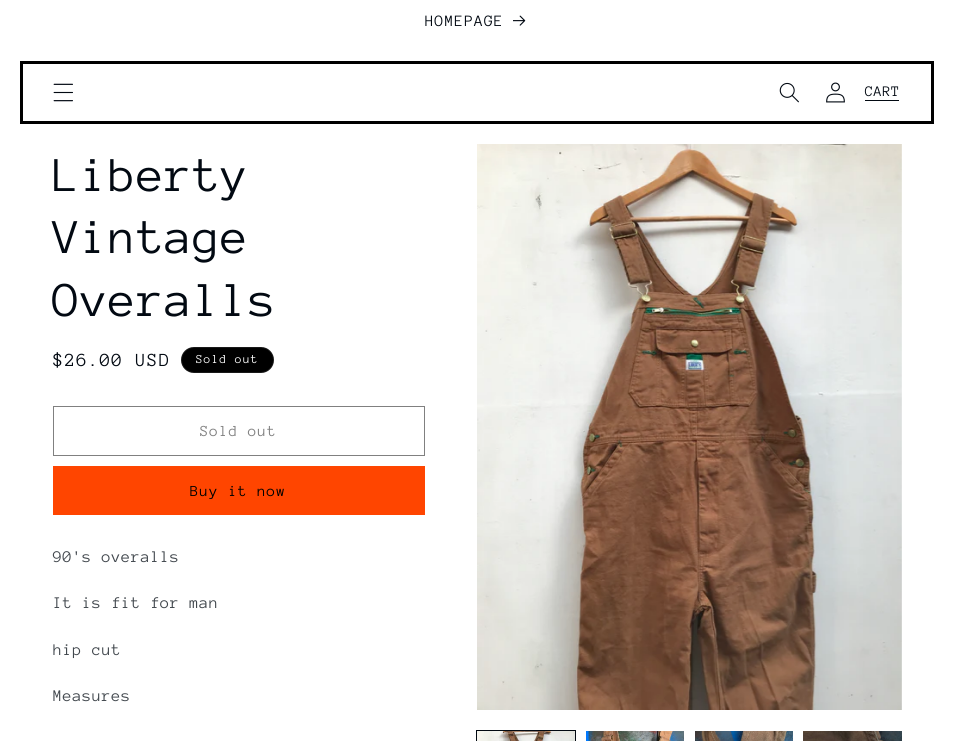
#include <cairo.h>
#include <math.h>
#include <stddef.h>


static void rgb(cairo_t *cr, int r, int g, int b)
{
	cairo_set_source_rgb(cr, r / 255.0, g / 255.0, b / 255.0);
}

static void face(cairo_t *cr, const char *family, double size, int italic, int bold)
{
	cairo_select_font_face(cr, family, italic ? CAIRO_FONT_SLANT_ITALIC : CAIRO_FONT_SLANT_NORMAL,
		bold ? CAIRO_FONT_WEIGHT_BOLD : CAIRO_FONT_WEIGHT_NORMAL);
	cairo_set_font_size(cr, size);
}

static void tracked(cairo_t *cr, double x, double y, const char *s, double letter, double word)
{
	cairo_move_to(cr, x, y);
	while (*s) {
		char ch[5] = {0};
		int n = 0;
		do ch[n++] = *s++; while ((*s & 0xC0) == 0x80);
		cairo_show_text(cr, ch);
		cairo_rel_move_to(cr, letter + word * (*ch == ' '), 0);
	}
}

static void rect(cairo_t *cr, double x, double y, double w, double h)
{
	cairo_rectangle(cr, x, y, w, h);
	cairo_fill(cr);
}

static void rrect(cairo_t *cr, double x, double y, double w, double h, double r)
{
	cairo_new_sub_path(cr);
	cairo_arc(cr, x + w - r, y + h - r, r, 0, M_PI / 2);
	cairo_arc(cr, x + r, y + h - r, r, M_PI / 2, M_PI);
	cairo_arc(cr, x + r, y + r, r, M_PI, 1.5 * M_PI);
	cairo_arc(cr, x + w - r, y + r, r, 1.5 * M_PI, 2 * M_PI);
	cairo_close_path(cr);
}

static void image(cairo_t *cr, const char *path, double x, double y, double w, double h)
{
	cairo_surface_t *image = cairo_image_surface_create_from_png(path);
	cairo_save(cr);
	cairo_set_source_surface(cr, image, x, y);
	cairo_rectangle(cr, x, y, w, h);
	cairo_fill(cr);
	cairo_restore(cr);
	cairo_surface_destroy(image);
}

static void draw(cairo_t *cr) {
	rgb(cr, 255, 255, 255);
	cairo_paint(cr);
	face(cr, "Anonymous Pro", 16.25, 0, 0);
	rgb(cr, 2, 9, 18);
	tracked(cr, 425, 26, "HOMEPAGE", 1, 0);
	image(cr, "image0.png", 513, 15, 13, 11);
	cairo_rectangle(cr, 21.5, 62.5, 911, 60);
	rgb(cr, 0, 0, 0);
	cairo_set_line_width(cr, 3);
	cairo_stroke(cr);
	image(cr, "image1.png", 53, 83, 20, 19);
	image(cr, "image2.png", 779, 82, 20, 21);
	image(cr, "image3.png", 826, 82, 19, 21);
	face(cr, "Anonymous Pro", 15, 0, 0);
	rgb(cr, 2, 9, 18);
	tracked(cr, 865, 96, "CART", 0.6, 0);
	rect(cr, 865, 100, 34, 1);
	face(cr, "Anonymous Pro", 50, 0, 0);
	tracked(cr, 53, 191, "Liberty", 0.75, 0);
	tracked(cr, 53, 253, "Vintage", 0.75, 0);
	tracked(cr, 53, 316, "Overalls", 0.75, 0);
	face(cr, "Anonymous Pro", 19, 0, 0);
	tracked(cr, 53, 366, "$26.00 USD", 1.4, 0);
	rgb(cr, 0, 0, 0);
	rrect(cr, 181, 347, 93, 26, 13);
	cairo_fill(cr);
	rrect(cr, 181.5, 347.5, 92, 25, 12.5);
	cairo_set_source_rgba(cr, 1, 1, 1, 0.1);
	cairo_set_line_width(cr, 1);
	cairo_stroke(cr);
	face(cr, "Anonymous Pro", 12.5, 0, 0);
	rgb(cr, 255, 255, 255);
	tracked(cr, 196, 363, "Sold out", 1, 0);
	cairo_rectangle(cr, 53.5, 406.5, 371, 49);
	rgb(cr, 128, 128, 128);
	cairo_stroke(cr);
	face(cr, "Anonymous Pro", 15.75, 0, 0);
	tracked(cr, 200, 436, "Sold out", 1, 0);
	rgb(cr, 255, 69, 0);
	rect(cr, 53, 466, 372, 49);
	rgb(cr, 0, 0, 0);
	tracked(cr, 190, 496, "Buy it now", 1, 0);
	face(cr, "Anonymous Pro", 16.75, 0, 0);
	rgb(cr, 65, 71, 77);
	tracked(cr, 53, 562, "90's overalls", 0.6, 0);
	tracked(cr, 53, 608, "It is fit for man", 0.6, 0);
	tracked(cr, 53, 655, "hip cut", 0.6, 0);
	tracked(cr, 53, 701, "Measures", 0.6, 0);
	image(cr, "image4.png", 477, 144, 425, 566);
	cairo_rectangle(cr, 476.5, 730.5, 99, 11);
	rgb(cr, 2, 9, 18);
	cairo_stroke(cr);
	image(cr, "image5.png", 477, 731, 98, 10);
	image(cr, "image6.png", 586, 731, 98, 10);
	image(cr, "image7.png", 695, 731, 98, 10);
	image(cr, "image8.png", 803, 731, 99, 10);
}

int main(void) {
	cairo_surface_t *surface = cairo_image_surface_create(CAIRO_FORMAT_RGB24, 954, 741);
	cairo_t *cr = cairo_create(surface);
	cairo_font_options_t *options = cairo_font_options_create();
	cairo_font_options_set_hint_metrics(options, CAIRO_HINT_METRICS_OFF);
	cairo_font_options_set_hint_style(options, CAIRO_HINT_STYLE_NONE);
	cairo_set_font_options(cr, options);
	cairo_set_miter_limit(cr, 4);
	draw(cr);
	cairo_surface_write_to_png(surface, "render.png");
	cairo_font_options_destroy(options);
	cairo_destroy(cr);
	cairo_surface_destroy(surface);
	return 0;
}
